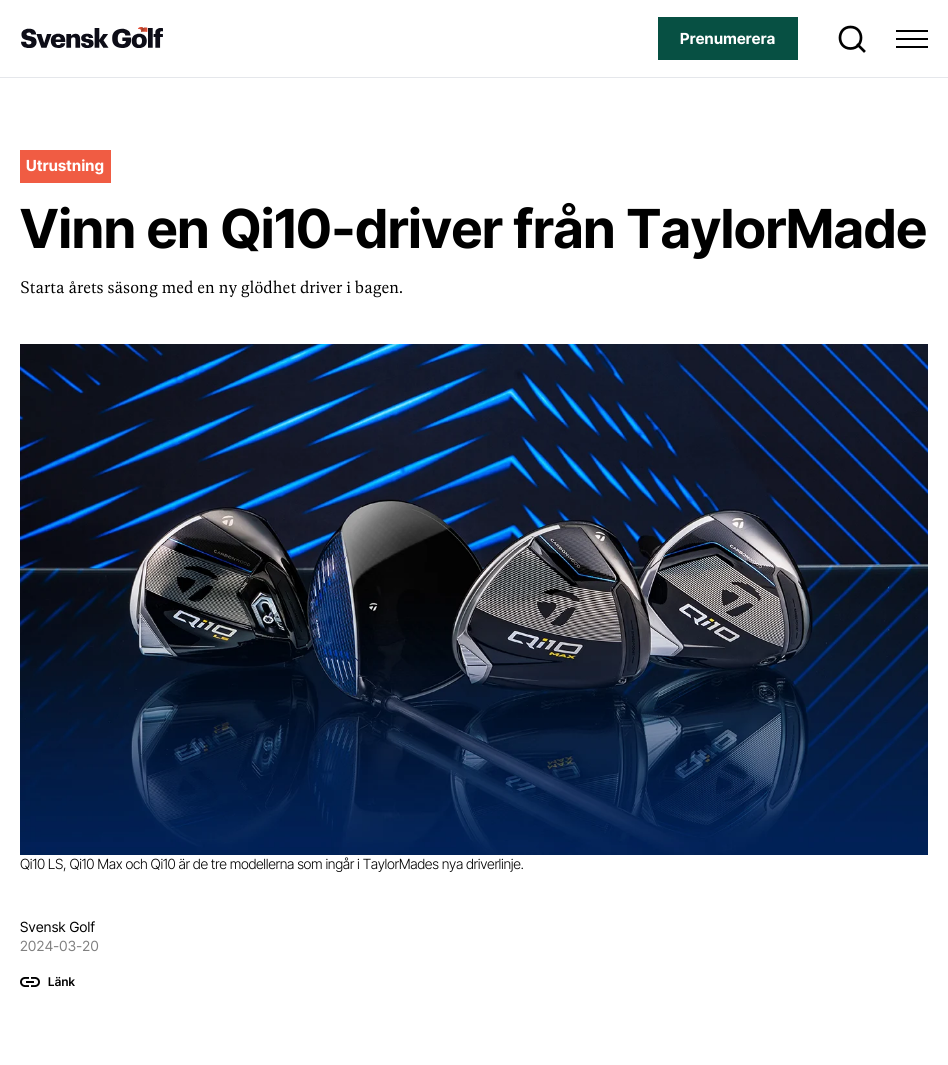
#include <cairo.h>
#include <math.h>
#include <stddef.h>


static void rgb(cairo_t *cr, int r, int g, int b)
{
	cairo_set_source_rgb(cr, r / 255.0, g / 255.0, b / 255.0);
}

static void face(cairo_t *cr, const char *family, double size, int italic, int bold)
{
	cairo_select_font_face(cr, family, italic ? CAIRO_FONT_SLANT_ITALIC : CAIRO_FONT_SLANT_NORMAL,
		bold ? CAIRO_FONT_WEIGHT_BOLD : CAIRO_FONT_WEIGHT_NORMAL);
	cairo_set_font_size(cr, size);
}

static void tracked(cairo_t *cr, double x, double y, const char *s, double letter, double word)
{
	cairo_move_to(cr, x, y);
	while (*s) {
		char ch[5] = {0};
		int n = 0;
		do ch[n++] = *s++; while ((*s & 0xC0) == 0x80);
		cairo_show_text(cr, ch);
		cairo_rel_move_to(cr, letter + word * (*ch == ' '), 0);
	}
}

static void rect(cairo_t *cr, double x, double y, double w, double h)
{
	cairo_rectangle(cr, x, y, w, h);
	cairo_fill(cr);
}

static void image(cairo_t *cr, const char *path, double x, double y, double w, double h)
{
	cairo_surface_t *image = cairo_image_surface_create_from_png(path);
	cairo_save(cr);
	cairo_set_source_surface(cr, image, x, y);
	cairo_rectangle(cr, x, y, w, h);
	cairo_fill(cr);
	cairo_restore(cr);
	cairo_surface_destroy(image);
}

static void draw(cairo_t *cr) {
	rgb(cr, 255, 255, 255);
	cairo_paint(cr);
	rgb(cr, 229, 231, 235);
	rect(cr, 0, 77, 948, 1);
	image(cr, "image0.png", 21, 27, 142, 21);
	rgb(cr, 7, 80, 67);
	rect(cr, 658, 17, 140, 43);
	face(cr, "Inter Tight", 15.25, 0, 1);
	rgb(cr, 255, 255, 255);
	tracked(cr, 680, 44, "Prenumerera", 0.3, 0);
	cairo_new_path(cr);
	cairo_move_to(cr, 850.5, 48.5);
	cairo_curve_to(cr, 864.5, 48.5, 864.5, 27, 850.5, 27);
	cairo_curve_to(cr, 836.5, 27, 836.5, 48.5, 850.5, 48.5);
	cairo_close_path(cr);
	rgb(cr, 0, 0, 0);
	cairo_set_line_width(cr, 2.7);
	cairo_set_line_cap(cr, CAIRO_LINE_CAP_ROUND);
	cairo_set_line_join(cr, CAIRO_LINE_JOIN_ROUND);
	cairo_stroke(cr);
	cairo_new_path(cr);
	cairo_move_to(cr, 864, 51);
	cairo_line_to(cr, 858, 45);
	cairo_set_line_cap(cr, CAIRO_LINE_CAP_SQUARE);
	cairo_stroke(cr);
	rect(cr, 896, 30, 32, 2);
	rect(cr, 896, 38, 32, 2);
	rect(cr, 896, 46, 32, 2);
	rgb(cr, 240, 92, 67);
	rect(cr, 20, 150, 91, 33);
	rgb(cr, 255, 255, 255);
	tracked(cr, 26, 171, "Utrustning", 0.3, 0);
	face(cr, "Inter Tight", 53.75, 0, 1);
	rgb(cr, 0, 0, 0);
	tracked(cr, 20, 248, "Vinn en Qi10-driver från TaylorMade", 0.3, 0);
	face(cr, "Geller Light", 18, 0, 0);
	tracked(cr, 20, 293, "Starta årets säsong med en ny glödhet driver i bagen.", 0.15, 0);
	image(cr, "image1.png", 20, 344, 908, 511);
	face(cr, "Inter Tight Light", 14, 0, 0);
	tracked(cr, 20, 869, "Qi10 LS, Qi10 Max och Qi10 är de tre modellerna som ingår i TaylorMades nya driverlinje.", -0.35, 0);
	face(cr, "Inter Tight", 14, 0, 0);
	tracked(cr, 20, 932, "Svensk Golf", 0.3, 0);
	rgb(cr, 128, 128, 128);
	tracked(cr, 20, 951, "2024-03-20", 0.3, 0);
	image(cr, "image2.png", 20, 977, 20, 10);
	face(cr, "Inter Tight SemiBold", 12, 0, 0);
	rgb(cr, 0, 0, 0);
	tracked(cr, 48, 986, "Länk", 0.3, 0);
}

int main(void) {
	cairo_surface_t *surface = cairo_image_surface_create(CAIRO_FORMAT_RGB24, 948, 1065);
	cairo_t *cr = cairo_create(surface);
	cairo_font_options_t *options = cairo_font_options_create();
	cairo_font_options_set_hint_metrics(options, CAIRO_HINT_METRICS_OFF);
	cairo_font_options_set_hint_style(options, CAIRO_HINT_STYLE_NONE);
	cairo_set_font_options(cr, options);
	cairo_set_miter_limit(cr, 4);
	draw(cr);
	cairo_surface_write_to_png(surface, "render.png");
	cairo_font_options_destroy(options);
	cairo_destroy(cr);
	cairo_surface_destroy(surface);
	return 0;
}
